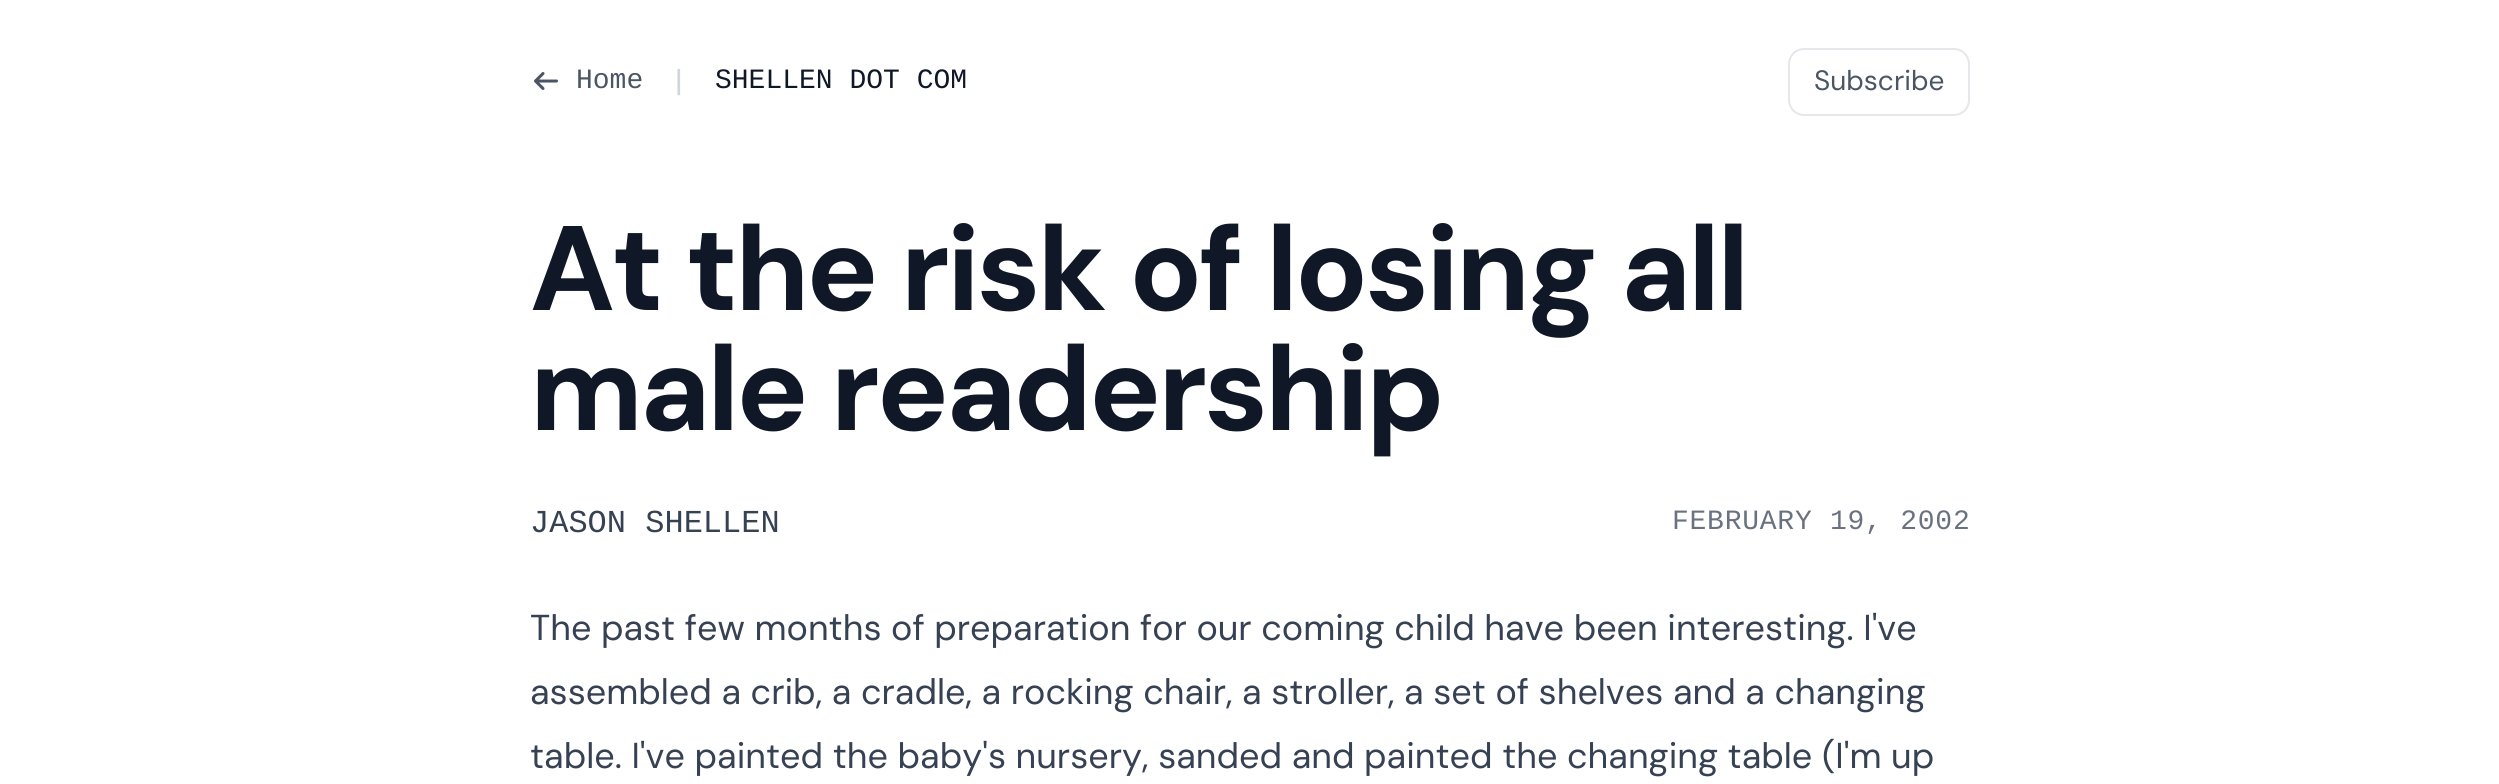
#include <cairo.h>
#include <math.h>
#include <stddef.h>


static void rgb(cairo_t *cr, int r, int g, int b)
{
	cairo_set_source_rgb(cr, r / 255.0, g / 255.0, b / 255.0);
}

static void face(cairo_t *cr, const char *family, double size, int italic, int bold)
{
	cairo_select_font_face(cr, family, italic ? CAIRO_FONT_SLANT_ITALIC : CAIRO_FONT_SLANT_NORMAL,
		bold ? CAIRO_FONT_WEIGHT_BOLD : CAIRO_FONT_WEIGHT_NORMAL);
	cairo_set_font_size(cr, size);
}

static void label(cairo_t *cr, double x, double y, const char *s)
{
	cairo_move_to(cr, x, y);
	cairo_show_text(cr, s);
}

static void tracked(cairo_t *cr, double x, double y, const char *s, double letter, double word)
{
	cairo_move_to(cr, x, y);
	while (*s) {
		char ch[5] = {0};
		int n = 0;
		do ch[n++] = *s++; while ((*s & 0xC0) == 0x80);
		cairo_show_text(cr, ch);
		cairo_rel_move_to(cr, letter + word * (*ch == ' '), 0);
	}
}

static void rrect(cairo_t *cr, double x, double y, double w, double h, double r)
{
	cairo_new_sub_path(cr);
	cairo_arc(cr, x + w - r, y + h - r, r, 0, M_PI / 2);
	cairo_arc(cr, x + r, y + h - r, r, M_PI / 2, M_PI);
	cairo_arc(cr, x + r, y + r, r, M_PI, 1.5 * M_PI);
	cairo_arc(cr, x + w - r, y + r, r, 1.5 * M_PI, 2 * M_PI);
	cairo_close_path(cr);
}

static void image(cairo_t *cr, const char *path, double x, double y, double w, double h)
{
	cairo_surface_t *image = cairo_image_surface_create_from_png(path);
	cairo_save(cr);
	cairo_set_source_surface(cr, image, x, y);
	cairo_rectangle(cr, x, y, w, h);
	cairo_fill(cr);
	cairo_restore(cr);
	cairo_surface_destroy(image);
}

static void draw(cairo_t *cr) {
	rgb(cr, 255, 255, 255);
	cairo_paint(cr);
	image(cr, "image0.png", 534, 72, 24, 18);
	face(cr, "Liberation Mono", 28, 0, 0);
	rgb(cr, 74, 85, 101);
	label(cr, 576, 88, "Home");
	face(cr, "DM Sans", 32, 0, 0);
	rgb(cr, 209, 213, 220);
	label(cr, 675, 92, "|");
	face(cr, "Liberation Mono", 28, 0, 0);
	rgb(cr, 16, 24, 40);
	label(cr, 715, 88, "SHELLEN DOT COM");
	rrect(cr, 1789, 49, 180, 66, 15);
	rgb(cr, 229, 231, 235);
	cairo_stroke(cr);
	face(cr, "DM Sans", 28, 0, 0);
	rgb(cr, 74, 85, 101);
	label(cr, 1814, 90, "Subscribe");
	face(cr, "DM Sans", 120, 0, 1);
	rgb(cr, 16, 24, 40);
	tracked(cr, 530, 310, "At the risk of losing all", -3, 0);
	tracked(cr, 530, 430, "male readership", -3, 0);
	face(cr, "Liberation Mono", 32, 0, 0);
	rgb(cr, 54, 65, 83);
	label(cr, 530, 532, "JASON SHELLEN");
	face(cr, "Liberation Mono", 28, 0, 0);
	rgb(cr, 106, 114, 130);
	tracked(cr, 1672, 529, "FEBRUARY 19, 2002", 0.75, 0);
	face(cr, "DM Sans", 36, 0, 0);
	rgb(cr, 54, 65, 83);
	label(cr, 530, 640, "The past few months of preparation for our coming child have been interesting. I've");
	label(cr, 530, 704, "assembled a crib, a cradle, a rocking chair, a stroller, a set of shelves and a changing");
	label(cr, 530, 768, "table. I've painted the baby's nursery, sanded and painted the changing table (I'm up");
}

int main(void) {
	cairo_surface_t *surface = cairo_image_surface_create(CAIRO_FORMAT_RGB24, 2499, 784);
	cairo_t *cr = cairo_create(surface);
	cairo_font_options_t *options = cairo_font_options_create();
	cairo_font_options_set_hint_metrics(options, CAIRO_HINT_METRICS_OFF);
	cairo_font_options_set_hint_style(options, CAIRO_HINT_STYLE_NONE);
	cairo_set_font_options(cr, options);
	cairo_set_miter_limit(cr, 4);
	draw(cr);
	cairo_surface_write_to_png(surface, "render.png");
	cairo_font_options_destroy(options);
	cairo_destroy(cr);
	cairo_surface_destroy(surface);
	return 0;
}
